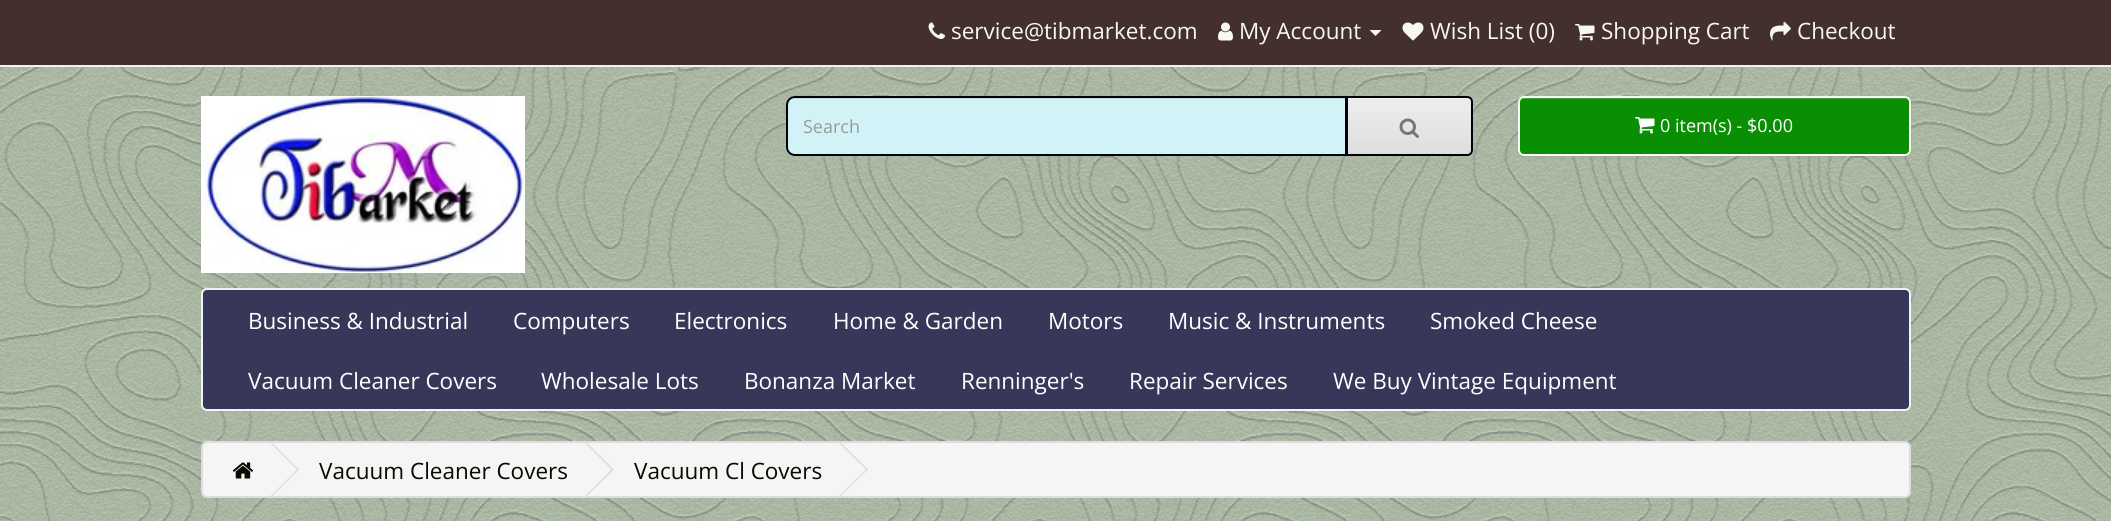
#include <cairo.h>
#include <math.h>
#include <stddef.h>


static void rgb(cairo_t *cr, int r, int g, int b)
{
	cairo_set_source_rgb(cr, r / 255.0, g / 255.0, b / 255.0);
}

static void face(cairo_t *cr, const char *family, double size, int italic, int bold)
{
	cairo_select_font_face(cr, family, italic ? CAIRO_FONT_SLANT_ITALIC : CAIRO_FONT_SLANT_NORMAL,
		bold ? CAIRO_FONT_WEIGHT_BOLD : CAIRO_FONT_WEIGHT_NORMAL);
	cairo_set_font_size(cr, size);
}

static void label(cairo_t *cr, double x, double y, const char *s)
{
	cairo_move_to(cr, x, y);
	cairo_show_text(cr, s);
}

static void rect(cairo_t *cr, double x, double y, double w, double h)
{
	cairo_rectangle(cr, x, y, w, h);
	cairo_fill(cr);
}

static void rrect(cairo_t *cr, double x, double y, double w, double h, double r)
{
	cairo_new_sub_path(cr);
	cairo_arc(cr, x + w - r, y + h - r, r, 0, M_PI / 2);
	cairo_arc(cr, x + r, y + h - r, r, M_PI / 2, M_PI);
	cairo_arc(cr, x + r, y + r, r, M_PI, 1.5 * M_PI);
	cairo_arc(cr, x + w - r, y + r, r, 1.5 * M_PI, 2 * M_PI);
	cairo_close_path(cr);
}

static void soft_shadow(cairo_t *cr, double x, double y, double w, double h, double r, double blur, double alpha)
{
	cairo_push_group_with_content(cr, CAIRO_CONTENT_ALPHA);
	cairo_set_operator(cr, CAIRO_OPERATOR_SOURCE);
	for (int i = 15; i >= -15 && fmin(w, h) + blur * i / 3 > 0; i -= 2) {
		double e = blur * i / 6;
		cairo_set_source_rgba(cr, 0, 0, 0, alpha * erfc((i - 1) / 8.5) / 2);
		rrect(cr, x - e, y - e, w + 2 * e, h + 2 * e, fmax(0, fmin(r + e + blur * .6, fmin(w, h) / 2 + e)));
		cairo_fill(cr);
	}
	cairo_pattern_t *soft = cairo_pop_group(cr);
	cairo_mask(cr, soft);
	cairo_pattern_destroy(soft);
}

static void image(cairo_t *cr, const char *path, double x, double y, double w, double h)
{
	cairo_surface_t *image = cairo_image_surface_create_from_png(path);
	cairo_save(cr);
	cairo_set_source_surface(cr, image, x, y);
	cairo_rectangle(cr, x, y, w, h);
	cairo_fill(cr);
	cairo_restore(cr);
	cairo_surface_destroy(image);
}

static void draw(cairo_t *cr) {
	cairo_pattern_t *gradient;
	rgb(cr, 224, 244, 213);
	cairo_paint(cr);
	image(cr, "image0.png", 0, 67, 2111, 454);
	rgb(cr, 67, 48, 45);
	rect(cr, 0, 0, 2111, 65);
	rgb(cr, 240, 241, 244);
	rect(cr, 0, 65, 2111, 2);
	image(cr, "image1.png", 928, 22, 17, 17);
	face(cr, "Open Sans", 22.5, 0, 0);
	rgb(cr, 247, 248, 242);
	label(cr, 951, 39, "service@tibmarket.com");
	image(cr, "image2.png", 1218, 22, 15, 19);
	label(cr, 1239, 39, "My Account");
	cairo_new_path(cr);
	cairo_move_to(cr, 1369.5, 30);
	cairo_line_to(cr, 1381.5, 30);
	cairo_line_to(cr, 1375.5, 36);
	cairo_close_path(cr);
	cairo_fill(cr);
	image(cr, "image3.png", 1402, 22, 22, 19);
	label(cr, 1430, 39, "Wish List (0)");
	image(cr, "image4.png", 1575, 24, 20, 17);
	label(cr, 1601, 39, "Shopping Cart");
	image(cr, "image5.png", 1770, 21, 21, 20);
	label(cr, 1797, 39, "Checkout");
	image(cr, "image6.png", 201, 96, 324, 177);
	rgb(cr, 209, 243, 248);
	cairo_new_path(cr);
	cairo_move_to(cr, 795, 96);
	cairo_line_to(cr, 1347, 96);
	cairo_line_to(cr, 1347, 156);
	cairo_line_to(cr, 795, 156);
	cairo_curve_to(cr, 790, 156, 786, 152, 786, 147);
	cairo_line_to(cr, 786, 105);
	cairo_curve_to(cr, 786, 100, 790, 96, 795, 96);
	cairo_close_path(cr);
	cairo_fill(cr);
	rgb(cr, 193, 225, 229);
	cairo_new_path(cr);
	cairo_move_to(cr, 795, 99);
	cairo_line_to(cr, 1346, 99);
	cairo_line_to(cr, 1346, 98);
	cairo_line_to(cr, 796, 98);
	cairo_curve_to(cr, 792, 98, 788, 102, 788, 106);
	cairo_curve_to(cr, 788, 102, 791, 99, 795, 99);
	cairo_close_path(cr);
	cairo_fill(cr);
	cairo_new_path(cr);
	cairo_move_to(cr, 795, 97);
	cairo_line_to(cr, 1346, 97);
	cairo_line_to(cr, 1346, 155);
	cairo_line_to(cr, 795, 155);
	cairo_curve_to(cr, 790.5, 155, 787, 151.5, 787, 147);
	cairo_line_to(cr, 787, 105);
	cairo_curve_to(cr, 787, 100.5, 790.5, 97, 795, 97);
	cairo_close_path(cr);
	rgb(cr, 0, 1, 8);
	cairo_stroke(cr);
	face(cr, "Open Sans", 18, 0, 0);
	rgb(cr, 153, 153, 153);
	label(cr, 803, 133, "Search");
	cairo_save(cr);
	cairo_new_path(cr);
	cairo_move_to(cr, 1346, 96);
	cairo_line_to(cr, 1467, 96);
	cairo_curve_to(cr, 1470.5, 96, 1473, 98.5, 1473, 102);
	cairo_line_to(cr, 1473, 150);
	cairo_curve_to(cr, 1473, 153.5, 1470.5, 156, 1467, 156);
	cairo_line_to(cr, 1346, 156);
	cairo_close_path(cr);
	cairo_clip(cr);
	gradient = cairo_pattern_create_linear(1409, 98, 1409, 155);
	cairo_pattern_add_color_stop_rgba(gradient, 0, 0.933, 0.933, 0.933, 1);
	cairo_pattern_add_color_stop_rgba(gradient, 1, 0.867, 0.867, 0.867, 1);
	cairo_set_source(cr, gradient);
	cairo_pattern_destroy(gradient);
	rect(cr, 1348, 98, 125, 57);
	cairo_restore(cr);
	rgb(cr, 241, 241, 241);
	cairo_new_path(cr);
	cairo_move_to(cr, 1347, 99);
	cairo_line_to(cr, 1467, 99);
	cairo_curve_to(cr, 1469, 99, 1472, 101, 1472, 104);
	cairo_line_to(cr, 1472, 103);
	cairo_curve_to(cr, 1472, 100, 1470, 98, 1467, 98);
	cairo_line_to(cr, 1347, 98);
	cairo_close_path(cr);
	cairo_fill(cr);
	cairo_new_path(cr);
	cairo_move_to(cr, 1347, 97);
	cairo_line_to(cr, 1467, 97);
	cairo_curve_to(cr, 1470, 97, 1472, 99, 1472, 102);
	cairo_line_to(cr, 1472, 150);
	cairo_curve_to(cr, 1472, 153, 1470, 155, 1467, 155);
	cairo_line_to(cr, 1347, 155);
	cairo_close_path(cr);
	rgb(cr, 0, 1, 8);
	cairo_stroke(cr);
	image(cr, "image7.png", 1399, 118, 20, 20);
	rgb(cr, 0, 0, 0);
	soft_shadow(cr, 1518, 98, 393, 60, 6, 1.5, 0.05);
	rgb(cr, 10, 143, 4);
	rrect(cr, 1518, 96, 393, 60, 6);
	cairo_fill(cr);
	rgb(cr, 59, 165, 54);
	cairo_new_path(cr);
	cairo_move_to(cr, 1524, 99);
	cairo_line_to(cr, 1905, 99);
	cairo_curve_to(cr, 1907, 99, 1910, 101, 1910, 104);
	cairo_line_to(cr, 1910, 103);
	cairo_curve_to(cr, 1910, 100, 1908, 98, 1905, 98);
	cairo_line_to(cr, 1525, 98);
	cairo_curve_to(cr, 1522, 98, 1520, 100, 1520, 103);
	cairo_line_to(cr, 1520, 104);
	cairo_curve_to(cr, 1520, 101, 1522, 99, 1524, 99);
	cairo_close_path(cr);
	cairo_fill(cr);
	rrect(cr, 1519, 97, 391, 58, 5);
	rgb(cr, 250, 252, 250);
	cairo_stroke(cr);
	image(cr, "image8.png", 1635, 117, 20, 17);
	rgb(cr, 255, 255, 255);
	label(cr, 1660, 132, "0 item(s) - $0.00");
	rgb(cr, 55, 55, 89);
	rrect(cr, 202, 289, 1708, 121, 5);
	cairo_fill_preserve(cr);
	rgb(cr, 242, 242, 248);
	cairo_stroke(cr);
	face(cr, "Open Sans", 22.5, 0, 0);
	rgb(cr, 255, 255, 255);
	label(cr, 248, 329, "Business & Industrial");
	label(cr, 513, 329, "Computers");
	label(cr, 674, 329, "Electronics");
	label(cr, 833, 329, "Home & Garden");
	label(cr, 1048, 329, "Motors");
	label(cr, 1168, 329, "Music & Instruments");
	label(cr, 1430, 329, "Smoked Cheese");
	label(cr, 248, 389, "Vacuum Cleaner Covers");
	label(cr, 541, 389, "Wholesale Lots");
	label(cr, 744, 389, "Bonanza Market");
	label(cr, 961, 389, "Renninger's");
	label(cr, 1129, 389, "Repair Services");
	label(cr, 1333, 389, "We Buy Vintage Equipment");
	rgb(cr, 245, 245, 245);
	rrect(cr, 202, 442, 1708, 55, 5);
	cairo_fill_preserve(cr);
	rgb(cr, 221, 221, 221);
	cairo_stroke(cr);
	image(cr, "image9.png", 232, 462, 21, 17);
	cairo_new_path(cr);
	cairo_move_to(cr, 270.5, 443);
	cairo_line_to(cr, 271.5, 442);
	cairo_line_to(cr, 299, 469.5);
	cairo_line_to(cr, 298, 470.5);
	cairo_close_path(cr);
	cairo_fill(cr);
	cairo_new_path(cr);
	cairo_move_to(cr, 270.5, 496);
	cairo_line_to(cr, 298, 468.5);
	cairo_line_to(cr, 299, 469.5);
	cairo_line_to(cr, 271.5, 497);
	cairo_close_path(cr);
	cairo_fill(cr);
	rgb(cr, 8, 10, 0);
	label(cr, 319, 479, "Vacuum Cleaner Covers");
	rgb(cr, 221, 221, 221);
	cairo_new_path(cr);
	cairo_move_to(cr, 585, 443);
	cairo_line_to(cr, 586, 442);
	cairo_line_to(cr, 614, 469.5);
	cairo_line_to(cr, 612.5, 470.5);
	cairo_close_path(cr);
	cairo_fill(cr);
	cairo_new_path(cr);
	cairo_move_to(cr, 585, 496);
	cairo_line_to(cr, 612.5, 468.5);
	cairo_line_to(cr, 614, 469.5);
	cairo_line_to(cr, 586, 497);
	cairo_close_path(cr);
	cairo_fill(cr);
	rgb(cr, 8, 10, 0);
	label(cr, 634, 479, "Vacuum Cl Covers");
	rgb(cr, 221, 221, 221);
	cairo_new_path(cr);
	cairo_move_to(cr, 839, 443);
	cairo_line_to(cr, 840, 442);
	cairo_line_to(cr, 868, 469.5);
	cairo_line_to(cr, 867, 470.5);
	cairo_close_path(cr);
	cairo_fill(cr);
	cairo_new_path(cr);
	cairo_move_to(cr, 839, 496);
	cairo_line_to(cr, 867, 468.5);
	cairo_line_to(cr, 868, 469.5);
	cairo_line_to(cr, 840, 497);
	cairo_close_path(cr);
	cairo_fill(cr);
}

int main(void) {
	cairo_surface_t *surface = cairo_image_surface_create(CAIRO_FORMAT_RGB24, 2111, 521);
	cairo_t *cr = cairo_create(surface);
	cairo_font_options_t *options = cairo_font_options_create();
	cairo_font_options_set_hint_metrics(options, CAIRO_HINT_METRICS_OFF);
	cairo_font_options_set_hint_style(options, CAIRO_HINT_STYLE_NONE);
	cairo_set_font_options(cr, options);
	cairo_set_miter_limit(cr, 4);
	draw(cr);
	cairo_surface_write_to_png(surface, "render.png");
	cairo_font_options_destroy(options);
	cairo_destroy(cr);
	cairo_surface_destroy(surface);
	return 0;
}
